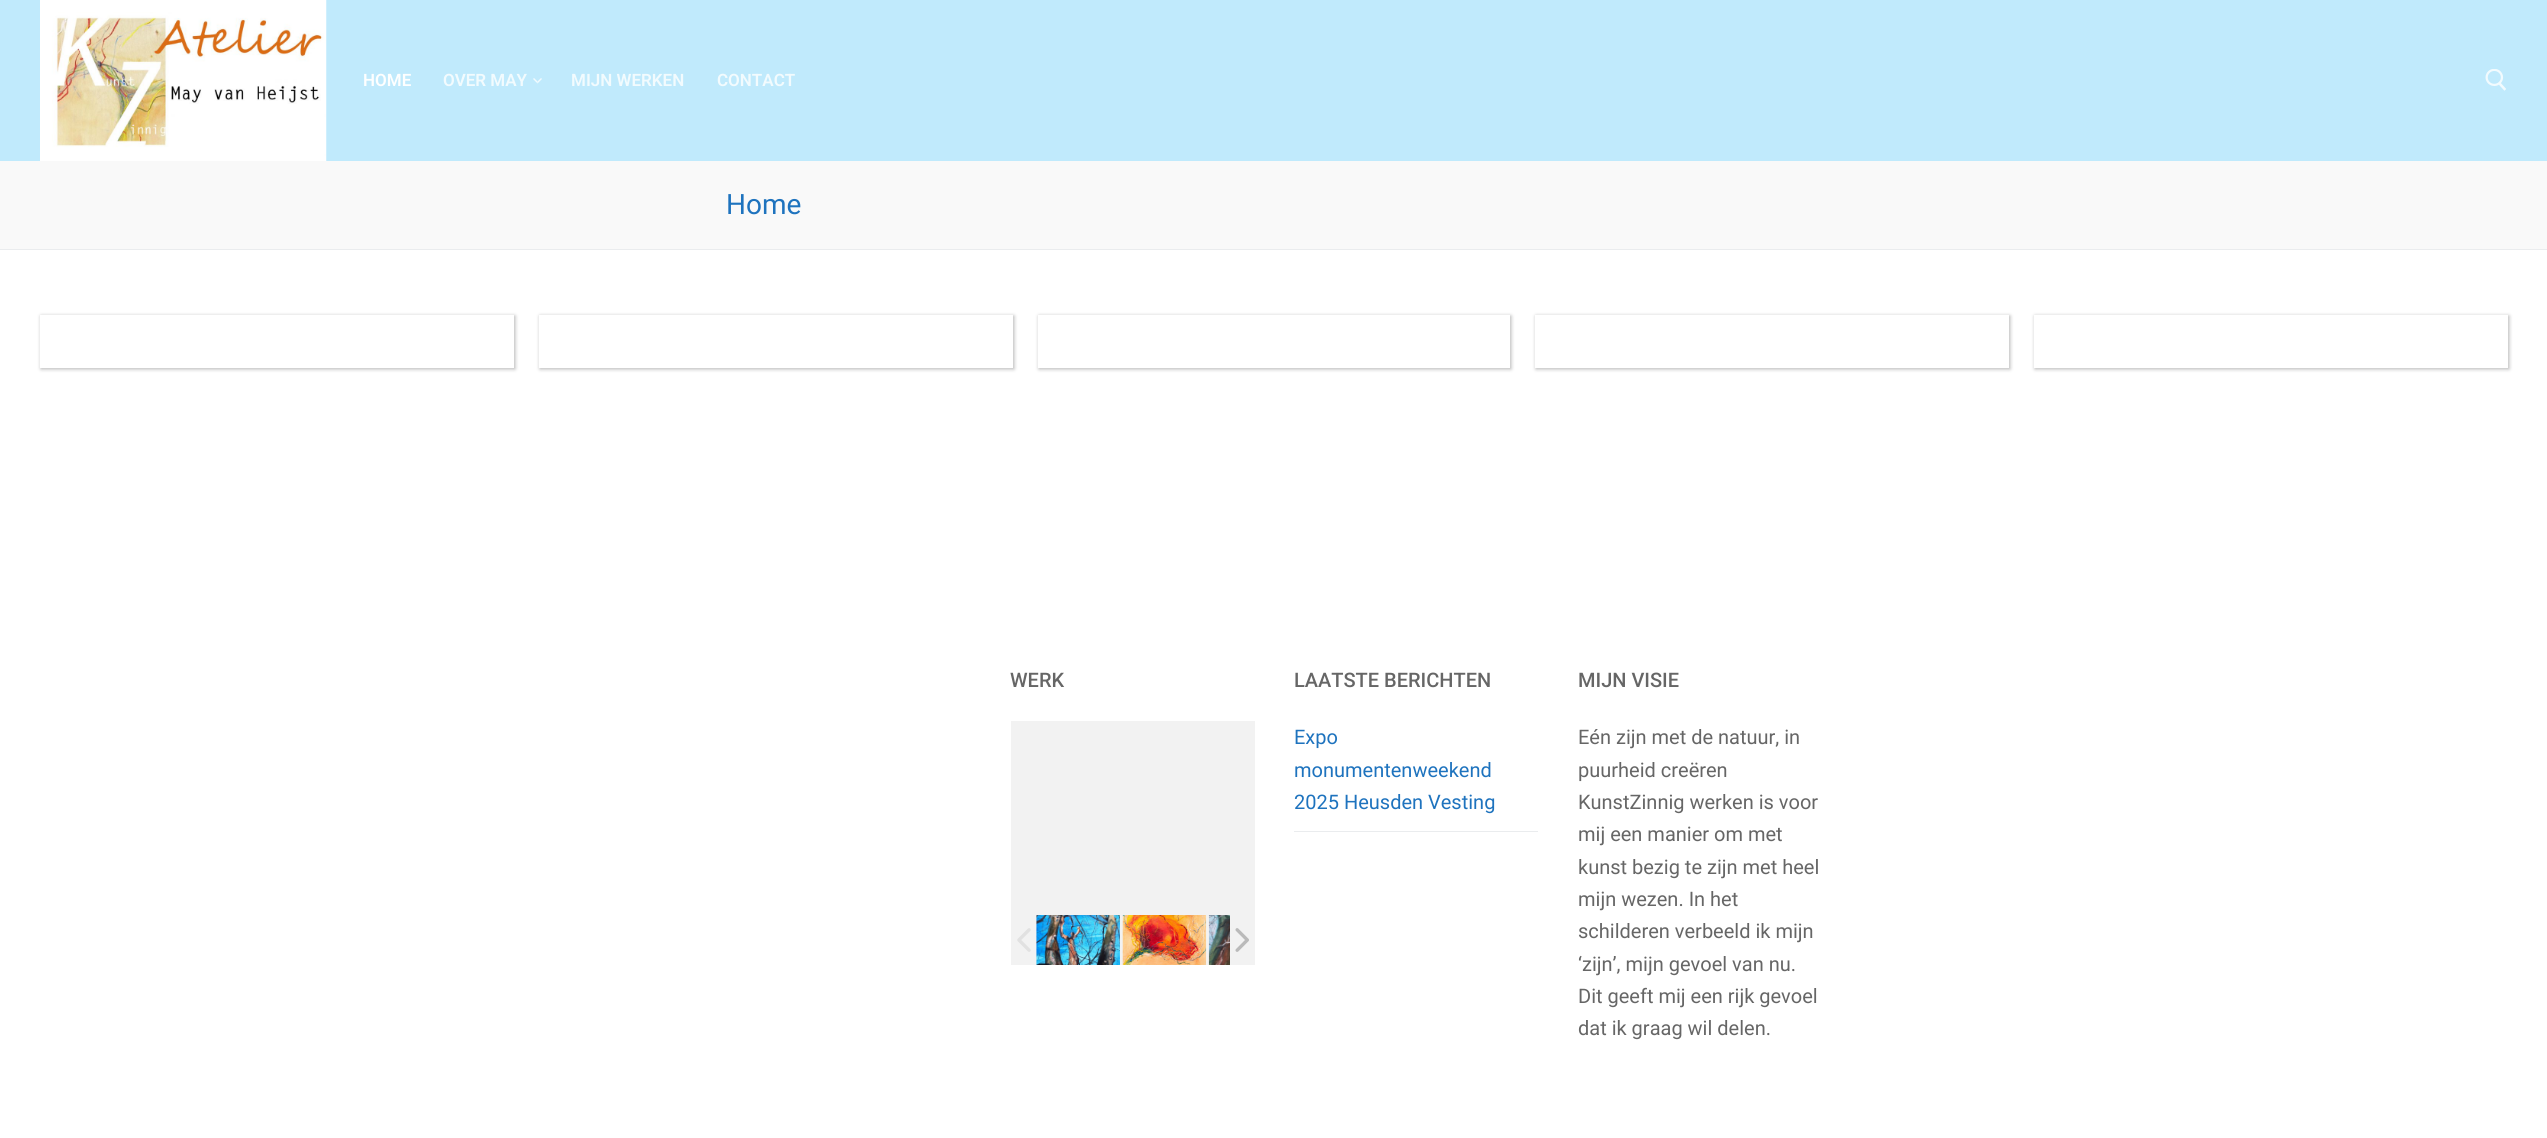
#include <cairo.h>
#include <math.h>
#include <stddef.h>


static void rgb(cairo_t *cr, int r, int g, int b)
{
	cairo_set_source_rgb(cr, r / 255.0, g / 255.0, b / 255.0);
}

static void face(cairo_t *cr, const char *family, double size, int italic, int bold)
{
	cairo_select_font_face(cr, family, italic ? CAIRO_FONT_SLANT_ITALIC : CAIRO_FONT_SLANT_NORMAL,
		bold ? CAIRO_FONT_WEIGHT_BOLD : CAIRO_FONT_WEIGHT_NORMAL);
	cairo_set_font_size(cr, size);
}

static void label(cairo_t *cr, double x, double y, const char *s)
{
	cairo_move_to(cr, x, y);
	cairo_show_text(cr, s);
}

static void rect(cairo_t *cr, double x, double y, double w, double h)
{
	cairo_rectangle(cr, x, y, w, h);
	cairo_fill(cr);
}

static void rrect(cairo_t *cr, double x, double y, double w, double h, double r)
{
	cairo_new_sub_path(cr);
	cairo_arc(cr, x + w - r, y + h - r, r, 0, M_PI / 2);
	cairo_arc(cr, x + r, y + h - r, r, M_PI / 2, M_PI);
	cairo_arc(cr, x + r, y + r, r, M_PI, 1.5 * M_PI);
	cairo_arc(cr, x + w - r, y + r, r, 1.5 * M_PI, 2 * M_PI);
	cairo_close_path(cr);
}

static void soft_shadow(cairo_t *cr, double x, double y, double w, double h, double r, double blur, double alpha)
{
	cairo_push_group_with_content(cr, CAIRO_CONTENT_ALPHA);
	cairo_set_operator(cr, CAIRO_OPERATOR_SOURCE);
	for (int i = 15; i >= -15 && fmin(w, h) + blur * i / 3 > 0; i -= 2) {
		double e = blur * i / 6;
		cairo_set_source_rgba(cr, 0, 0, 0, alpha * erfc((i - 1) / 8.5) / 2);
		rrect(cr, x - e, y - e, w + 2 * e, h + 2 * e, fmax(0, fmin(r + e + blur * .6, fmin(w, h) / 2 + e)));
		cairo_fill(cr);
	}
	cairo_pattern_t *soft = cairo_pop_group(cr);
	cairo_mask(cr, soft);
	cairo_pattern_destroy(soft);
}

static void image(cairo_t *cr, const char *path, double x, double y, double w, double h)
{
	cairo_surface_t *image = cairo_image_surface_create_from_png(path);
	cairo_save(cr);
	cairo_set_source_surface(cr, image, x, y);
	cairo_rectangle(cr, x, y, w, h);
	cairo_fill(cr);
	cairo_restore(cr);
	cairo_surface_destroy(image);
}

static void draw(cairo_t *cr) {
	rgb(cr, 255, 255, 255);
	cairo_paint(cr);
	rgb(cr, 192, 234, 252);
	rect(cr, 0, 0, 2547, 161);
	image(cr, "image0.png", 40, 0, 287, 161);
	face(cr, "Roboto SemiBold", 17, 0, 0);
	rgb(cr, 254, 255, 255);
	label(cr, 363, 86, "HOME");
	rgb(cr, 242, 251, 254);
	label(cr, 443, 86, "OVER MAY");
	cairo_new_path(cr);
	cairo_move_to(cr, 537.5, 83.5);
	cairo_line_to(cr, 533, 79);
	cairo_line_to(cr, 534, 78);
	cairo_line_to(cr, 537.5, 81.5);
	cairo_close_path(cr);
	cairo_fill(cr);
	cairo_set_source_rgba(cr, 1, 1, 1, 0.79);
	cairo_new_path(cr);
	cairo_move_to(cr, 542, 79);
	cairo_line_to(cr, 537.5, 83.5);
	cairo_line_to(cr, 537.5, 81.5);
	cairo_line_to(cr, 541, 78);
	cairo_close_path(cr);
	cairo_fill(cr);
	rgb(cr, 242, 251, 254);
	label(cr, 571, 86, "MIJN WERKEN");
	label(cr, 717, 86, "CONTACT");
	image(cr, "image1.png", 2485, 69, 21, 22);
	rgb(cr, 249, 249, 249);
	rect(cr, 0, 161, 2547, 88);
	rgb(cr, 234, 236, 238);
	rect(cr, 0, 249, 2547, 1);
	face(cr, "Roboto", 28, 0, 0);
	rgb(cr, 30, 115, 190);
	label(cr, 726, 214, "Home");
	cairo_save(cr);
	cairo_set_fill_rule(cr, CAIRO_FILL_RULE_EVEN_ODD);
	cairo_new_path(cr);
	cairo_move_to(cr, 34, 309);
	cairo_line_to(cr, 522, 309);
	cairo_line_to(cr, 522, 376);
	cairo_line_to(cr, 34, 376);
	cairo_close_path(cr);
	cairo_move_to(cr, 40, 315);
	cairo_line_to(cr, 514, 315);
	cairo_line_to(cr, 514, 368);
	cairo_line_to(cr, 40, 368);
	cairo_close_path(cr);
	cairo_clip(cr);
	rgb(cr, 0, 0, 0);
	soft_shadow(cr, 41, 316, 474, 53, 0, 2, 0.3);
	cairo_restore(cr);
	cairo_rectangle(cr, 45, 320, 464, 43);
	rgb(cr, 255, 255, 255);
	cairo_set_line_width(cr, 10);
	cairo_stroke(cr);
	cairo_save(cr);
	cairo_set_fill_rule(cr, CAIRO_FILL_RULE_EVEN_ODD);
	cairo_new_path(cr);
	cairo_move_to(cr, 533, 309);
	cairo_line_to(cr, 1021, 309);
	cairo_line_to(cr, 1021, 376);
	cairo_line_to(cr, 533, 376);
	cairo_close_path(cr);
	cairo_move_to(cr, 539, 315);
	cairo_line_to(cr, 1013, 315);
	cairo_line_to(cr, 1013, 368);
	cairo_line_to(cr, 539, 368);
	cairo_close_path(cr);
	cairo_clip(cr);
	rgb(cr, 0, 0, 0);
	soft_shadow(cr, 540, 316, 474, 53, 0, 2, 0.3);
	cairo_restore(cr);
	cairo_rectangle(cr, 544, 320, 464, 43);
	cairo_stroke(cr);
	cairo_save(cr);
	cairo_set_fill_rule(cr, CAIRO_FILL_RULE_EVEN_ODD);
	cairo_new_path(cr);
	cairo_move_to(cr, 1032, 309);
	cairo_line_to(cr, 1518, 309);
	cairo_line_to(cr, 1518, 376);
	cairo_line_to(cr, 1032, 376);
	cairo_close_path(cr);
	cairo_move_to(cr, 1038, 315);
	cairo_line_to(cr, 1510, 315);
	cairo_line_to(cr, 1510, 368);
	cairo_line_to(cr, 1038, 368);
	cairo_close_path(cr);
	cairo_clip(cr);
	rgb(cr, 0, 0, 0);
	soft_shadow(cr, 1039, 316, 472, 53, 0, 2, 0.3);
	cairo_restore(cr);
	cairo_rectangle(cr, 1043, 320, 462, 43);
	cairo_stroke(cr);
	cairo_save(cr);
	cairo_set_fill_rule(cr, CAIRO_FILL_RULE_EVEN_ODD);
	cairo_new_path(cr);
	cairo_move_to(cr, 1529, 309);
	cairo_line_to(cr, 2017, 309);
	cairo_line_to(cr, 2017, 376);
	cairo_line_to(cr, 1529, 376);
	cairo_close_path(cr);
	cairo_move_to(cr, 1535, 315);
	cairo_line_to(cr, 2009, 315);
	cairo_line_to(cr, 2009, 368);
	cairo_line_to(cr, 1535, 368);
	cairo_close_path(cr);
	cairo_clip(cr);
	rgb(cr, 0, 0, 0);
	soft_shadow(cr, 1536, 316, 474, 53, 0, 2, 0.3);
	cairo_restore(cr);
	cairo_rectangle(cr, 1540, 320, 464, 43);
	cairo_stroke(cr);
	cairo_save(cr);
	cairo_set_fill_rule(cr, CAIRO_FILL_RULE_EVEN_ODD);
	cairo_new_path(cr);
	cairo_move_to(cr, 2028, 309);
	cairo_line_to(cr, 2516, 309);
	cairo_line_to(cr, 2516, 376);
	cairo_line_to(cr, 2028, 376);
	cairo_close_path(cr);
	cairo_move_to(cr, 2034, 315);
	cairo_line_to(cr, 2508, 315);
	cairo_line_to(cr, 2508, 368);
	cairo_line_to(cr, 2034, 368);
	cairo_close_path(cr);
	cairo_clip(cr);
	rgb(cr, 0, 0, 0);
	soft_shadow(cr, 2035, 316, 474, 53, 0, 2, 0.3);
	cairo_restore(cr);
	cairo_rectangle(cr, 2039, 320, 464, 43);
	cairo_stroke(cr);
	face(cr, "Roboto Medium", 20, 0, 0);
	rgb(cr, 102, 102, 102);
	label(cr, 1010, 687, "WERK");
	rgb(cr, 242, 242, 242);
	rect(cr, 1011, 721, 244, 244);
	image(cr, "image2.png", 1017, 928, 14, 24);
	image(cr, "image3.png", 1036, 915, 84, 50);
	image(cr, "image4.png", 1122, 915, 85, 50);
	image(cr, "image5.png", 1208, 915, 22, 50);
	image(cr, "image6.png", 1235, 928, 14, 24);
	rgb(cr, 102, 102, 102);
	label(cr, 1294, 687, "LAATSTE BERICHTEN");
	rgb(cr, 234, 236, 238);
	rect(cr, 1294, 831, 244, 1);
	face(cr, "Roboto", 20, 0, 0);
	rgb(cr, 30, 115, 190);
	label(cr, 1294, 744, "Expo");
	label(cr, 1294, 777, "monumentenweekend");
	label(cr, 1294, 809, "2025 Heusden Vesting");
	face(cr, "Roboto Medium", 20, 0, 0);
	rgb(cr, 102, 102, 102);
	label(cr, 1578, 687, "MIJN VISIE");
	face(cr, "Roboto", 20, 0, 0);
	label(cr, 1578, 744, "Eén zijn met de natuur, in");
	label(cr, 1578, 777, "puurheid creëren");
	label(cr, 1578, 809, "KunstZinnig werken is voor");
	label(cr, 1578, 841, "mij een manier om met");
	label(cr, 1578, 874, "kunst bezig te zijn met heel");
	label(cr, 1578, 906, "mijn wezen. In het");
	label(cr, 1578, 938, "schilderen verbeeld ik mijn");
	label(cr, 1578, 971, "‘zijn’, mijn gevoel van nu.");
	label(cr, 1578, 1003, "Dit geeft mij een rijk gevoel");
	label(cr, 1578, 1035, "dat ik graag wil delen.");
}

int main(void) {
	cairo_surface_t *surface = cairo_image_surface_create(CAIRO_FORMAT_RGB24, 2547, 1138);
	cairo_t *cr = cairo_create(surface);
	cairo_font_options_t *options = cairo_font_options_create();
	cairo_font_options_set_hint_metrics(options, CAIRO_HINT_METRICS_OFF);
	cairo_font_options_set_hint_style(options, CAIRO_HINT_STYLE_NONE);
	cairo_set_font_options(cr, options);
	cairo_set_miter_limit(cr, 4);
	draw(cr);
	cairo_surface_write_to_png(surface, "render.png");
	cairo_font_options_destroy(options);
	cairo_destroy(cr);
	cairo_surface_destroy(surface);
	return 0;
}
